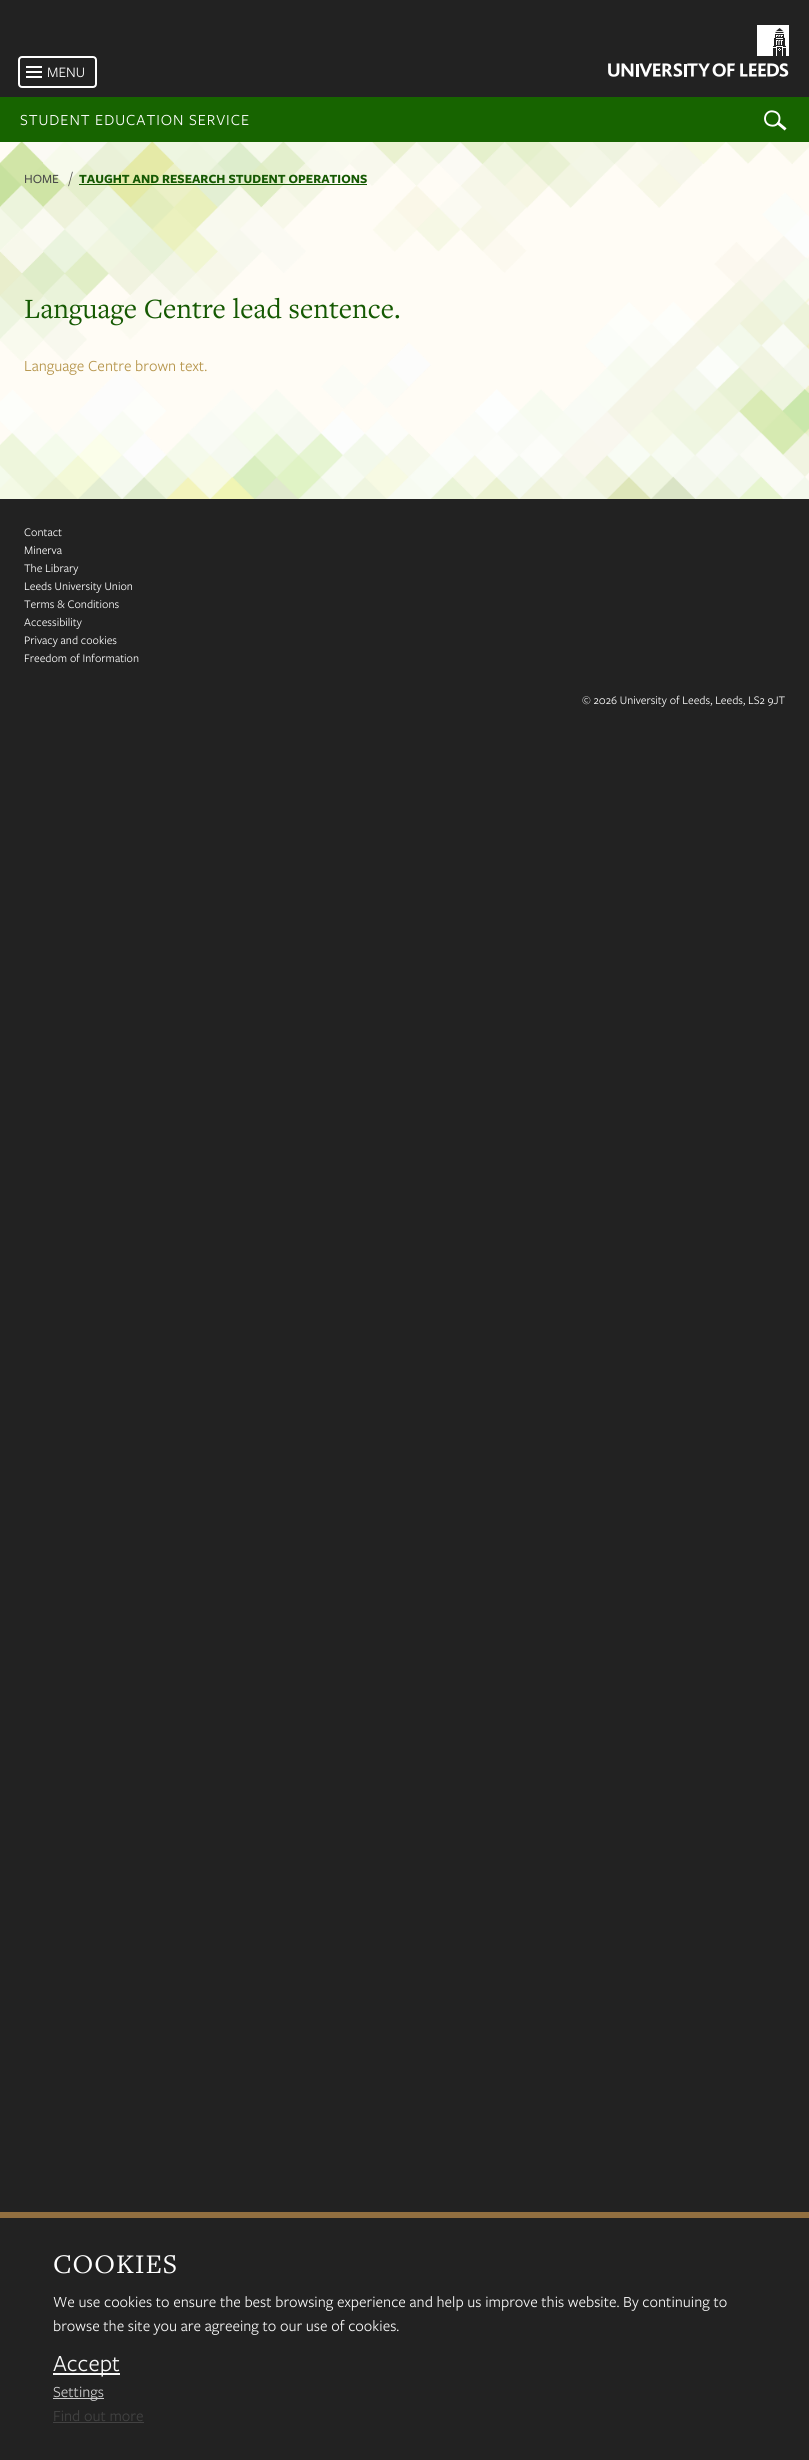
#include <cairo.h>
#include <math.h>
#include <stddef.h>


static void rgb(cairo_t *cr, int r, int g, int b)
{
	cairo_set_source_rgb(cr, r / 255.0, g / 255.0, b / 255.0);
}

static void face(cairo_t *cr, const char *family, double size, int italic, int bold)
{
	cairo_select_font_face(cr, family, italic ? CAIRO_FONT_SLANT_ITALIC : CAIRO_FONT_SLANT_NORMAL,
		bold ? CAIRO_FONT_WEIGHT_BOLD : CAIRO_FONT_WEIGHT_NORMAL);
	cairo_set_font_size(cr, size);
}

static void label(cairo_t *cr, double x, double y, const char *s)
{
	cairo_move_to(cr, x, y);
	cairo_show_text(cr, s);
}

static void tracked(cairo_t *cr, double x, double y, const char *s, double letter, double word)
{
	cairo_move_to(cr, x, y);
	while (*s) {
		char ch[5] = {0};
		int n = 0;
		do ch[n++] = *s++; while ((*s & 0xC0) == 0x80);
		cairo_show_text(cr, ch);
		cairo_rel_move_to(cr, letter + word * (*ch == ' '), 0);
	}
}

static void rect(cairo_t *cr, double x, double y, double w, double h)
{
	cairo_rectangle(cr, x, y, w, h);
	cairo_fill(cr);
}

static void rrect(cairo_t *cr, double x, double y, double w, double h, double r)
{
	cairo_new_sub_path(cr);
	cairo_arc(cr, x + w - r, y + h - r, r, 0, M_PI / 2);
	cairo_arc(cr, x + r, y + h - r, r, M_PI / 2, M_PI);
	cairo_arc(cr, x + r, y + r, r, M_PI, 1.5 * M_PI);
	cairo_arc(cr, x + w - r, y + r, r, 1.5 * M_PI, 2 * M_PI);
	cairo_close_path(cr);
}

static void image(cairo_t *cr, const char *path, double x, double y, double w, double h)
{
	cairo_surface_t *image = cairo_image_surface_create_from_png(path);
	cairo_save(cr);
	cairo_set_source_surface(cr, image, x, y);
	cairo_rectangle(cr, x, y, w, h);
	cairo_fill(cr);
	cairo_restore(cr);
	cairo_surface_destroy(image);
}

static void draw(cairo_t *cr) {
	rgb(cr, 34, 34, 34);
	cairo_paint(cr);
	rrect(cr, 19, 57, 77, 30, 3);
	rgb(cr, 255, 255, 255);
	cairo_stroke(cr);
	rect(cr, 26, 66, 16, 2);
	rect(cr, 26, 71, 16, 2);
	rect(cr, 26, 76, 16, 2);
	face(cr, "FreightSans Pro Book", 15, 0, 0);
	label(cr, 47, 77, "MENU");
	image(cr, "image0.png", 757, 25, 32, 31);
	image(cr, "image1.png", 608, 63, 181, 14);
	rgb(cr, 23, 100, 0);
	rect(cr, 0, 97, 809, 45);
	face(cr, "FreightSans Pro Book", 16, 0, 0);
	rgb(cr, 255, 255, 255);
	tracked(cr, 20, 125, "STUDENT EDUCATION SERVICE", 0.95, 0);
	cairo_new_path(cr);
	cairo_move_to(cr, 773.5, 111.5);
	cairo_curve_to(cr, 783, 113, 780.5, 127.5, 771, 125.5);
	cairo_curve_to(cr, 761.5, 124, 764, 109.5, 773.5, 111.5);
	cairo_close_path(cr);
	cairo_set_line_width(cr, 1.9);
	cairo_stroke(cr);
	cairo_new_path(cr);
	cairo_move_to(cr, 778.5, 123.5);
	cairo_line_to(cr, 784.5, 128.5);
	cairo_set_line_width(cr, 2.9);
	cairo_set_line_cap(cr, CAIRO_LINE_CAP_SQUARE);
	cairo_stroke(cr);
	rgb(cr, 255, 252, 245);
	rect(cr, 0, 142, 809, 357);
	image(cr, "image2.png", 0, 142, 809, 357);
	face(cr, "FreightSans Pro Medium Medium", 13, 0, 0);
	rgb(cr, 74, 74, 74);
	label(cr, 24, 183, "HOME");
	face(cr, "FreightSans Pro Book", 16, 0, 0);
	label(cr, 69, 183, "/");
	face(cr, "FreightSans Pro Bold", 13, 0, 1);
	rgb(cr, 21, 89, 2);
	label(cr, 79, 183, "TAUGHT AND RESEARCH STUDENT OPERATIONS");
	rect(cr, 79, 184, 288, 1);
	face(cr, "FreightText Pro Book", 29, 0, 0);
	label(cr, 24, 318, "Language Centre lead sentence.");
	face(cr, "FreightSans Pro Book", 16, 0, 0);
	rgb(cr, 182, 149, 75);
	label(cr, 24, 371, "Language Centre brown text.");
	face(cr, "FreightSans Pro Book", 12, 0, 0);
	rgb(cr, 255, 255, 255);
	label(cr, 24, 536, "Contact");
	label(cr, 24, 554, "Minerva");
	label(cr, 24, 572, "The Library");
	label(cr, 24, 590, "Leeds University Union");
	label(cr, 24, 608, "Terms & Conditions");
	label(cr, 24, 626, "Accessibility");
	label(cr, 24, 644, "Privacy and cookies");
	label(cr, 24, 662, "Freedom of Information");
	label(cr, 582, 704, "© 2026 University of Leeds, Leeds, LS2 9JT");
	rgb(cr, 145, 111, 64);
	rect(cr, 0, 2212, 809, 6);
	face(cr, "FreightText Pro Book", 28, 0, 0);
	rgb(cr, 255, 255, 255);
	tracked(cr, 53, 2273, "COOKIES", 1, 0);
	face(cr, "FreightSans Pro Book", 16, 0, 0);
	rgb(cr, 247, 247, 247);
	label(cr, 53, 2307, "We use cookies to ensure the best browsing experience and help us improve this website. By continuing to");
	label(cr, 53, 2331, "browse the site you are agreeing to our use of cookies.");
	rect(cr, 53, 2373, 67, 2);
	face(cr, "FreightSans Pro Book", 24, 0, 0);
	label(cr, 53, 2371, "Accept");
	rgb(cr, 204, 204, 204);
	rect(cr, 53, 2398, 51, 1);
	face(cr, "FreightSans Pro Book", 16, 0, 0);
	label(cr, 53, 2397, "Settings");
	rgb(cr, 66, 66, 66);
	label(cr, 53, 2421, "Find out more");
	rect(cr, 53, 2422, 91, 1);
}

int main(void) {
	cairo_surface_t *surface = cairo_image_surface_create(CAIRO_FORMAT_RGB24, 809, 2460);
	cairo_t *cr = cairo_create(surface);
	cairo_font_options_t *options = cairo_font_options_create();
	cairo_font_options_set_hint_metrics(options, CAIRO_HINT_METRICS_OFF);
	cairo_font_options_set_hint_style(options, CAIRO_HINT_STYLE_NONE);
	cairo_set_font_options(cr, options);
	cairo_set_miter_limit(cr, 4);
	draw(cr);
	cairo_surface_write_to_png(surface, "render.png");
	cairo_font_options_destroy(options);
	cairo_destroy(cr);
	cairo_surface_destroy(surface);
	return 0;
}
